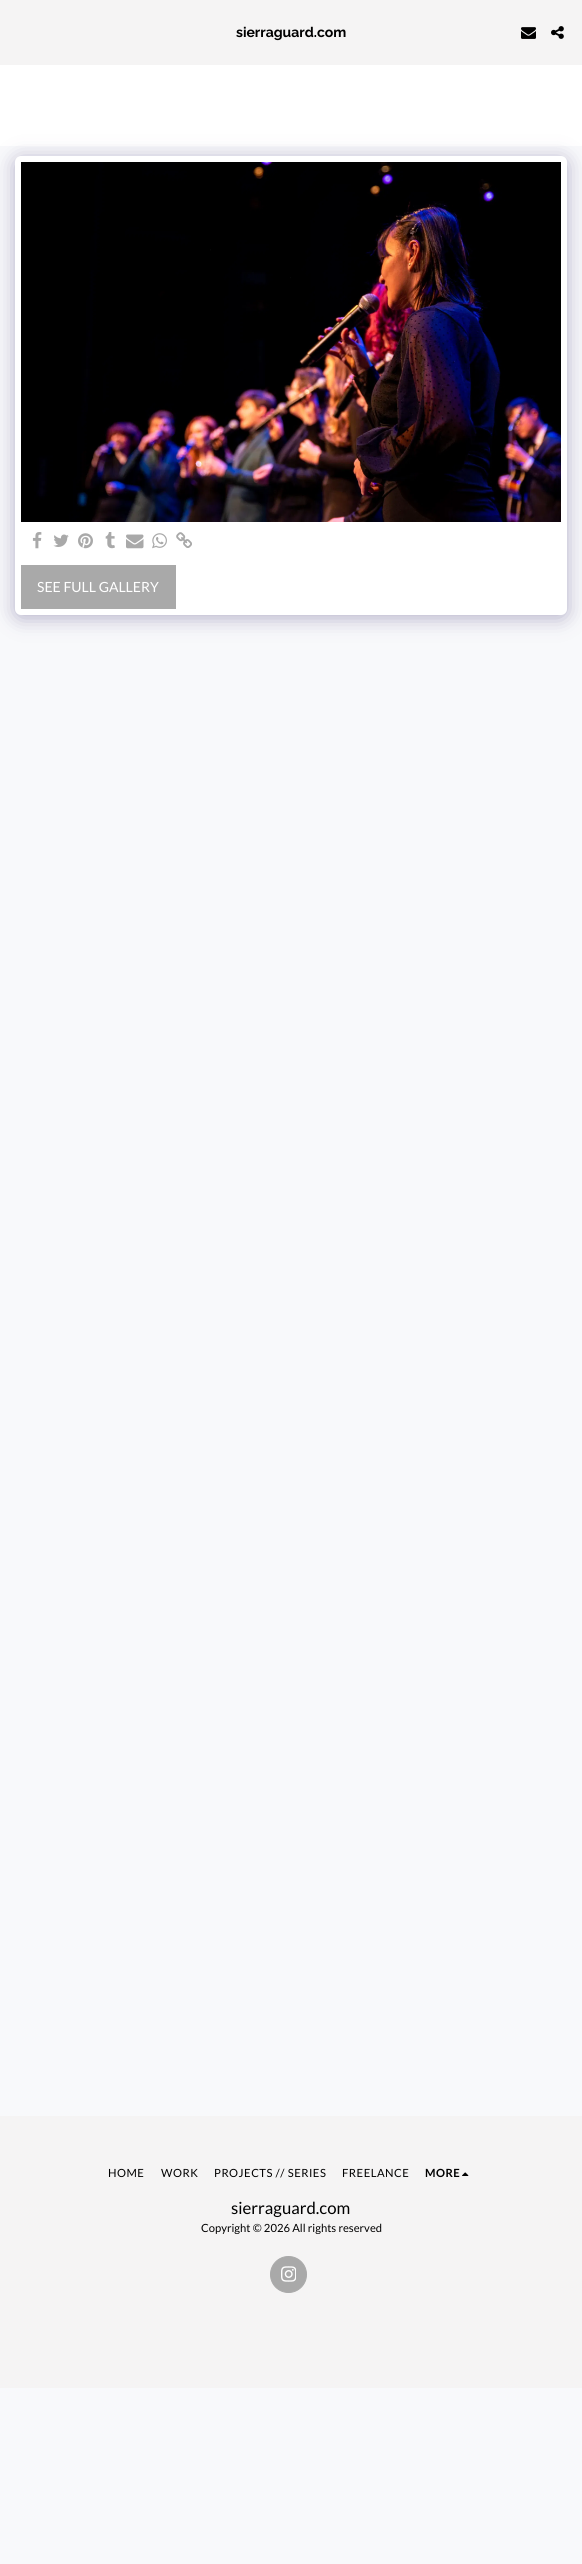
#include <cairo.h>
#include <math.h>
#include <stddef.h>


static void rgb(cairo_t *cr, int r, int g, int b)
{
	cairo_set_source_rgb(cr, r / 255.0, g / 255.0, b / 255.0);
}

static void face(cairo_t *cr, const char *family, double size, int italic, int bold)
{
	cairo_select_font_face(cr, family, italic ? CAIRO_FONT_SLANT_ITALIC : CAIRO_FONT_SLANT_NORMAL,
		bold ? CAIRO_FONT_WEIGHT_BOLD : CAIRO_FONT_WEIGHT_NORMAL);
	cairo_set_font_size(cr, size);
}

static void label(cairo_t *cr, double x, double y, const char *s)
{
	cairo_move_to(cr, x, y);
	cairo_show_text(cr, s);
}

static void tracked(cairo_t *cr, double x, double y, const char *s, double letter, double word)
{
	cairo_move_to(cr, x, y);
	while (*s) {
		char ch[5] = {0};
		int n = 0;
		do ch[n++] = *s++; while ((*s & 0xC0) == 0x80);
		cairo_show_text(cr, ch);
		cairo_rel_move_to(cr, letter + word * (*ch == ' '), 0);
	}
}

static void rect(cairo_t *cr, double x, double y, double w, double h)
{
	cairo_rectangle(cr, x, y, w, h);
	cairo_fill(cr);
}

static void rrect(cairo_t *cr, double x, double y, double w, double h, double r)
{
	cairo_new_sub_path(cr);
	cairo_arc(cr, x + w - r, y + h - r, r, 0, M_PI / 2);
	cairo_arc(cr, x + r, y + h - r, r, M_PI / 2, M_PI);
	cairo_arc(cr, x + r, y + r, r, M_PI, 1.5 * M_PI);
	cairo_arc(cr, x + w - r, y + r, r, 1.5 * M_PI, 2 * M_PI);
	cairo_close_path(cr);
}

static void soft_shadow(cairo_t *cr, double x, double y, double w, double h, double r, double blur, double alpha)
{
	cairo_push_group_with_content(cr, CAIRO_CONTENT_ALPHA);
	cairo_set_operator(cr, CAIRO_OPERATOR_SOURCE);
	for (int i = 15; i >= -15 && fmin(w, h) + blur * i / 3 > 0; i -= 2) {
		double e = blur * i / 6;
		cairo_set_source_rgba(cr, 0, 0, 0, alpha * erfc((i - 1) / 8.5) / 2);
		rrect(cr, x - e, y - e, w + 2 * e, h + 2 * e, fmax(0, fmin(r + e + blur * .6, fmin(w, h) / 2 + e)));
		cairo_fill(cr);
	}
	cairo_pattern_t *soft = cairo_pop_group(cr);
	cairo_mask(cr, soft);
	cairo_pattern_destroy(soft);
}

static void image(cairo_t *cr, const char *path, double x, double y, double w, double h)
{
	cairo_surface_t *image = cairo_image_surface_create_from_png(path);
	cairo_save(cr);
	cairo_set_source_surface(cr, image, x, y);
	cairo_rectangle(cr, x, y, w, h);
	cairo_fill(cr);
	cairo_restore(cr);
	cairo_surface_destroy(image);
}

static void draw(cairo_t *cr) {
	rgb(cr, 248, 249, 251);
	cairo_paint(cr);
	rgb(cr, 245, 244, 244);
	rect(cr, 0, 0, 582, 65);
	face(cr, "Raleway", 14, 0, 1);
	rgb(cr, 0, 0, 0);
	label(cr, 236, 37, "sierraguard.com");
	image(cr, "image0.png", 521, 27, 15, 12);
	image(cr, "image1.png", 551, 26, 13, 13);
	rgb(cr, 255, 255, 255);
	rect(cr, 0, 65, 582, 81);
	rgb(cr, 77, 63, 122);
	soft_shadow(cr, 15, 159, 552, 459, 6, 10, 0.4);
	rgb(cr, 255, 255, 255);
	rrect(cr, 15, 156, 552, 459, 6);
	cairo_fill(cr);
	image(cr, "image2.png", 21, 162, 540, 360);
	image(cr, "image3.png", 32, 532, 10, 17);
	image(cr, "image4.png", 53, 534, 16, 13);
	image(cr, "image5.png", 78, 533, 15, 16);
	image(cr, "image6.png", 105, 532, 10, 17);
	image(cr, "image7.png", 126, 534, 18, 15);
	image(cr, "image8.png", 152, 533, 15, 16);
	image(cr, "image9.png", 176, 532, 16, 16);
	rgb(cr, 169, 169, 169);
	rect(cr, 21, 565, 155, 44);
	face(cr, "Lato", 14, 0, 0);
	rgb(cr, 255, 255, 255);
	label(cr, 37, 592, "SEE FULL GALLERY");
	rgb(cr, 245, 244, 244);
	rect(cr, 0, 2116, 582, 272);
	face(cr, "Lato", 11.25, 0, 0);
	rgb(cr, 0, 0, 0);
	tracked(cr, 108, 2177, "HOME", 0.5, 0);
	tracked(cr, 161, 2177, "WORK", 0.5, 0);
	tracked(cr, 214, 2177, "PROJECTS // SERIES", 0.5, 0);
	tracked(cr, 342, 2177, "FREELANCE", 0.5, 0);
	face(cr, "Lato", 11.25, 0, 1);
	tracked(cr, 425, 2177, "MORE", 0.5, 0);
	image(cr, "image10.png", 462, 2172, 7, 4);
	face(cr, "Lato", 16.75, 0, 0);
	label(cr, 231, 2214, "sierraguard.com");
	face(cr, "Lato", 11.25, 0, 0);
	label(cr, 201, 2232, "Copyright © 2026 All rights reserved");
	rgb(cr, 169, 169, 169);
	cairo_new_path(cr);
	cairo_arc(cr, 288.5, 2274.5, 18, 0, 2 * M_PI);
	cairo_fill_preserve(cr);
	cairo_set_line_width(cr, 1);
	cairo_stroke(cr);
	image(cr, "image11.png", 281, 2266, 15, 16);
}

int main(void) {
	cairo_surface_t *surface = cairo_image_surface_create(CAIRO_FORMAT_RGB24, 582, 2564);
	cairo_t *cr = cairo_create(surface);
	cairo_font_options_t *options = cairo_font_options_create();
	cairo_font_options_set_hint_metrics(options, CAIRO_HINT_METRICS_OFF);
	cairo_font_options_set_hint_style(options, CAIRO_HINT_STYLE_NONE);
	cairo_set_font_options(cr, options);
	cairo_set_miter_limit(cr, 4);
	draw(cr);
	cairo_surface_write_to_png(surface, "render.png");
	cairo_font_options_destroy(options);
	cairo_destroy(cr);
	cairo_surface_destroy(surface);
	return 0;
}
